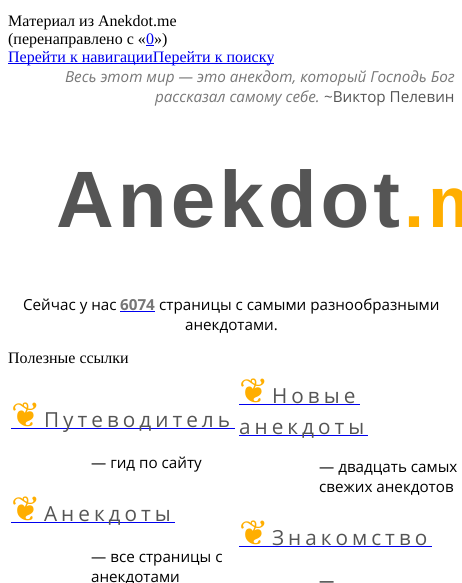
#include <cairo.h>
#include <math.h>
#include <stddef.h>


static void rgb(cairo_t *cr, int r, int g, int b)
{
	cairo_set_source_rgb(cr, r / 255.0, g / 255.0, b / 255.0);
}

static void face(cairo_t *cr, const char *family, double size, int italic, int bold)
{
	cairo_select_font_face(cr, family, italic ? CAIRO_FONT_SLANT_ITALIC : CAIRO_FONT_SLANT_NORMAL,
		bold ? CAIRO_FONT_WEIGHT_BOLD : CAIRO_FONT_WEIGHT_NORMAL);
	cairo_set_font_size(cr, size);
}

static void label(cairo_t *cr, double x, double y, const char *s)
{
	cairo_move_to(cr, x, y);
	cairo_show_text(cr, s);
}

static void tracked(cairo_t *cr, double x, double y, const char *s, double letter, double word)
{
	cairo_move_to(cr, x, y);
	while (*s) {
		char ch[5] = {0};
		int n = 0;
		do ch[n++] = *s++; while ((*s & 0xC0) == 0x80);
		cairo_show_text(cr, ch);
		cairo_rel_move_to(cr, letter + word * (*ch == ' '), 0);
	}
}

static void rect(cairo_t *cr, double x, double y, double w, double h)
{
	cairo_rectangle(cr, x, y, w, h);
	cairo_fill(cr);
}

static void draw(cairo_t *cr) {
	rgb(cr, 255, 255, 255);
	cairo_paint(cr);
	face(cr, "Liberation Serif", 16, 0, 0);
	rgb(cr, 0, 0, 0);
	label(cr, 8, 26, "Материал из Anekdot.me");
	label(cr, 8, 44, "(перенаправлено с «");
	rgb(cr, 0, 0, 238);
	rect(cr, 146, 45, 8, 1);
	label(cr, 146, 44, "0");
	rgb(cr, 0, 0, 0);
	label(cr, 154, 44, "»)");
	rgb(cr, 0, 0, 238);
	rect(cr, 8, 63, 266, 1);
	label(cr, 8, 62, "Перейти к навигацииПерейти к поиску");
	face(cr, "Open Sans", 15.2, 1, 0);
	rgb(cr, 119, 119, 119);
	label(cr, 65, 82, "Весь этот мир — это анекдот, который Господь Бог");
	label(cr, 155, 102, "рассказал самому себе.");
	face(cr, "Open Sans", 15.2, 0, 0);
	rgb(cr, 85, 85, 85);
	label(cr, 324, 102, "~Виктор Пелевин");
	face(cr, "Liberation Sans", 80, 0, 1);
	tracked(cr, 56, 227, "Anekdot", 4, 0);
	face(cr, "Liberation Sans", 72, 0, 1);
	rgb(cr, 255, 174, 0);
	tracked(cr, 404, 227, ".m", 4, 0);
	face(cr, "Open Sans", 15.2, 0, 0);
	rgb(cr, 0, 0, 0);
	label(cr, 23, 310, "Сейчас у нас");
	face(cr, "Open Sans", 15.2, 0, 1);
	rgb(cr, 119, 119, 119);
	label(cr, 120, 310, "6074");
	rgb(cr, 0, 0, 238);
	rect(cr, 120, 311, 35, 1);
	face(cr, "Open Sans", 15.2, 0, 0);
	rgb(cr, 0, 0, 0);
	label(cr, 159, 310, "страницы с самыми разнообразными");
	label(cr, 185, 330, "анекдотами.");
	face(cr, "Liberation Serif", 16, 0, 0);
	label(cr, 8, 363, "Полезные ссылки");
	face(cr, "DejaVu Sans", 35, 0, 0);
	rgb(cr, 255, 174, 0);
	tracked(cr, 11, 427, "❦", 4, 0);
	rgb(cr, 0, 0, 238);
	rect(cr, 11, 428, 224, 1);
	face(cr, "Open Sans", 20.75, 0, 0);
	rgb(cr, 85, 85, 85);
	tracked(cr, 44, 427, "Путеводитель", 4, 0);
	face(cr, "Open Sans", 15.2, 0, 0);
	rgb(cr, 0, 0, 0);
	label(cr, 91, 468, "— гид по сайту");
	face(cr, "DejaVu Sans", 35, 0, 0);
	rgb(cr, 255, 174, 0);
	tracked(cr, 11, 521, "❦", 4, 0);
	rgb(cr, 0, 0, 238);
	rect(cr, 11, 522, 164, 1);
	face(cr, "Open Sans", 20.75, 0, 0);
	rgb(cr, 85, 85, 85);
	tracked(cr, 44, 521, "Анекдоты", 4, 0);
	face(cr, "Open Sans", 15.2, 0, 0);
	rgb(cr, 0, 0, 0);
	label(cr, 91, 562, "— все страницы с");
	label(cr, 91, 582, "анекдотами");
	face(cr, "DejaVu Sans", 35, 0, 0);
	rgb(cr, 255, 174, 0);
	tracked(cr, 239, 403, "❦", 4, 0);
	face(cr, "Open Sans", 20.75, 0, 0);
	rgb(cr, 85, 85, 85);
	tracked(cr, 272, 403, "Новые", 4, 0);
	rgb(cr, 0, 0, 238);
	rect(cr, 239, 404, 121, 1);
	rect(cr, 239, 435, 129, 1);
	rgb(cr, 85, 85, 85);
	tracked(cr, 239, 434, "анекдоты", 4, 0);
	face(cr, "Open Sans", 15.2, 0, 0);
	rgb(cr, 0, 0, 0);
	label(cr, 319, 472, "— двадцать самых");
	label(cr, 319, 492, "свежих анекдотов");
	face(cr, "DejaVu Sans", 35, 0, 0);
	rgb(cr, 255, 174, 0);
	tracked(cr, 239, 545, "❦", 4, 0);
	face(cr, "Open Sans", 20.75, 0, 0);
	rgb(cr, 85, 85, 85);
	tracked(cr, 272, 545, "Знакомство", 4, 0);
	rgb(cr, 0, 0, 238);
	rect(cr, 239, 546, 193, 1);
	face(cr, "Open Sans", 15.2, 0, 0);
	rgb(cr, 0, 0, 0);
	label(cr, 319, 586, "—");
}

int main(void) {
	cairo_surface_t *surface = cairo_image_surface_create(CAIRO_FORMAT_RGB24, 462, 583);
	cairo_t *cr = cairo_create(surface);
	cairo_font_options_t *options = cairo_font_options_create();
	cairo_font_options_set_hint_metrics(options, CAIRO_HINT_METRICS_OFF);
	cairo_font_options_set_hint_style(options, CAIRO_HINT_STYLE_NONE);
	cairo_set_font_options(cr, options);
	cairo_set_miter_limit(cr, 4);
	draw(cr);
	cairo_surface_write_to_png(surface, "render.png");
	cairo_font_options_destroy(options);
	cairo_destroy(cr);
	cairo_surface_destroy(surface);
	return 0;
}
